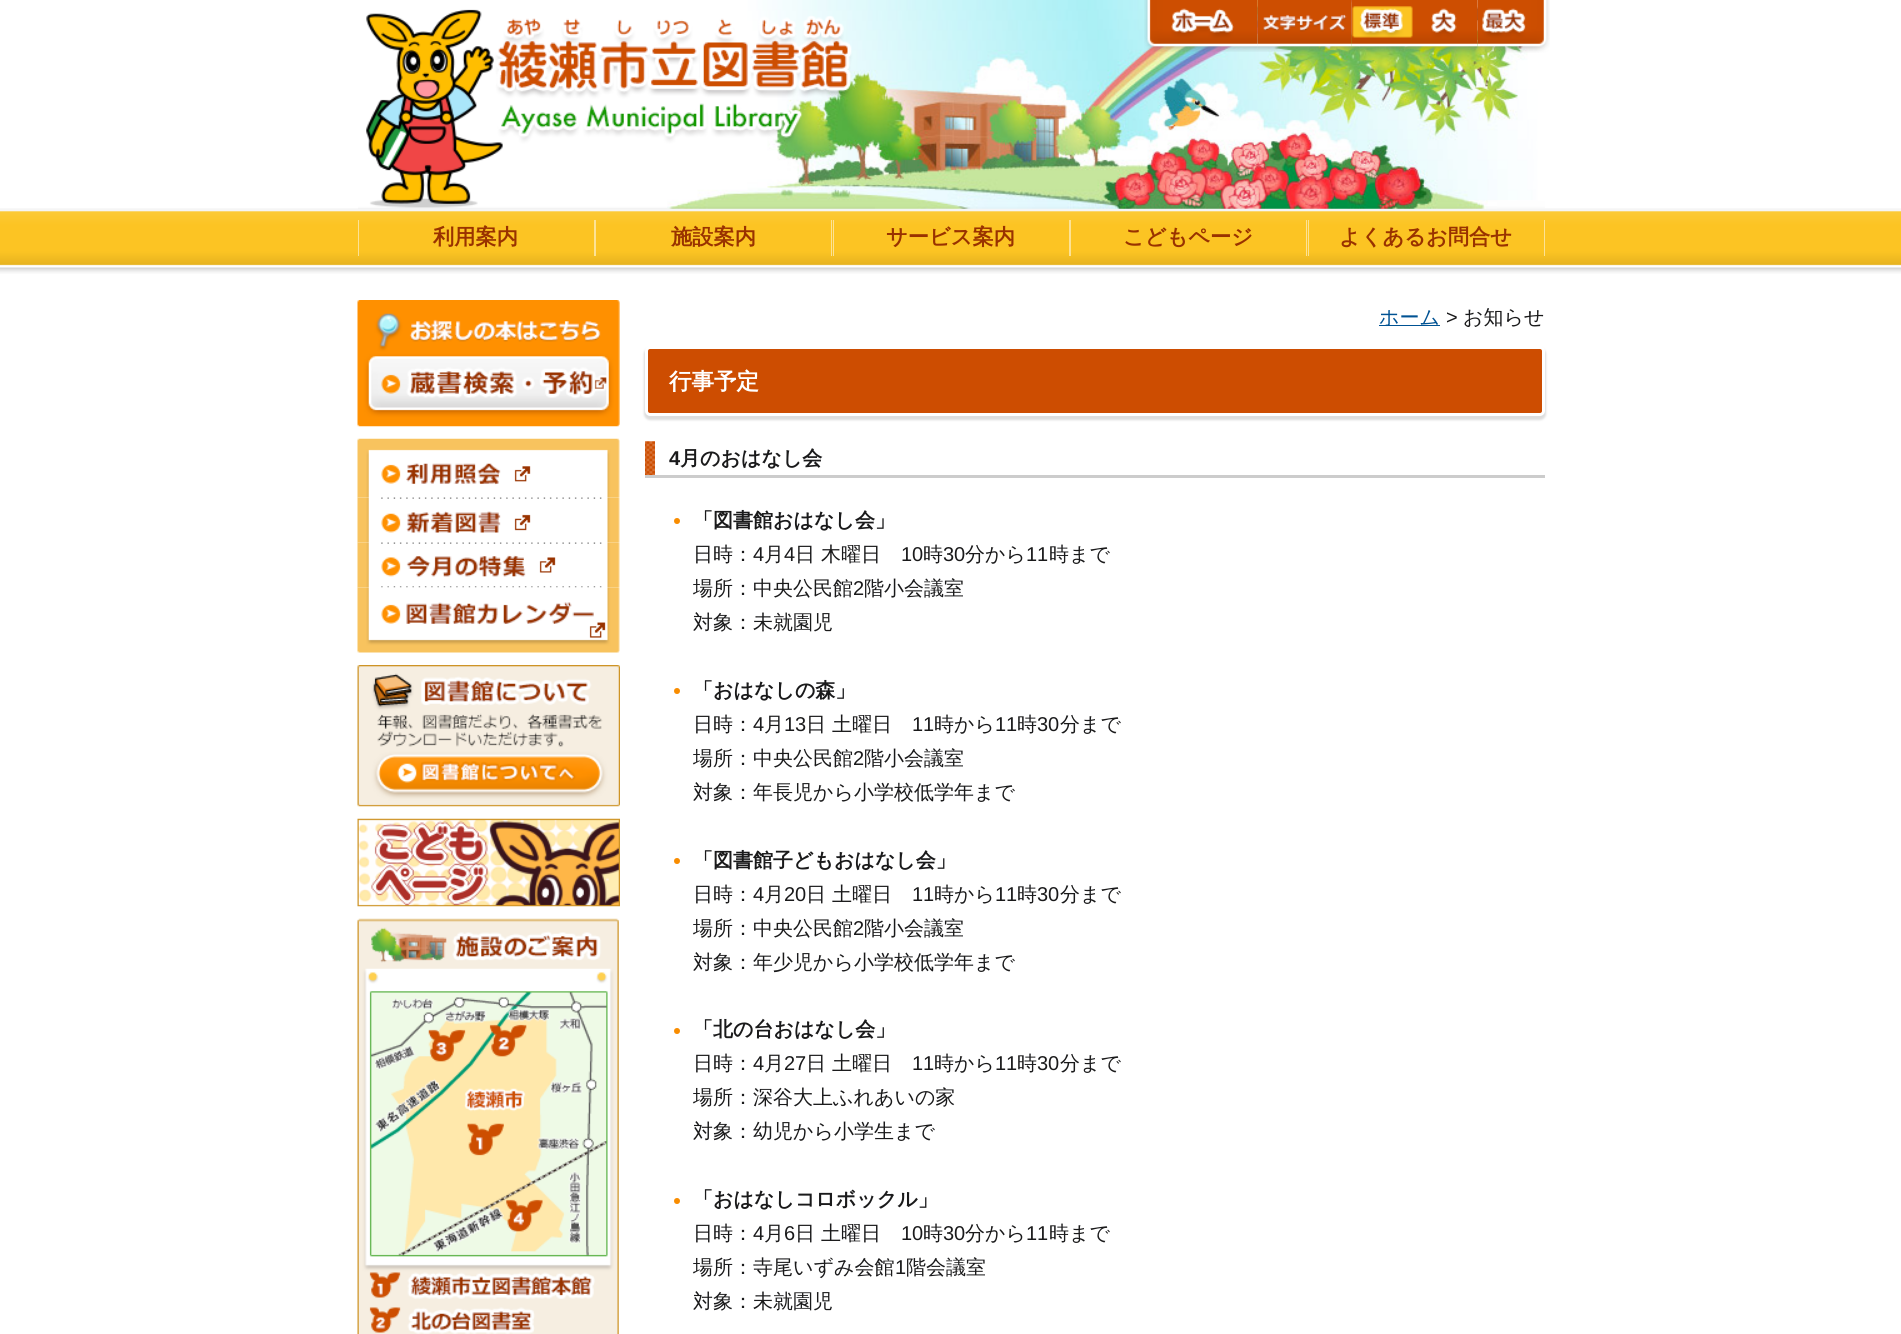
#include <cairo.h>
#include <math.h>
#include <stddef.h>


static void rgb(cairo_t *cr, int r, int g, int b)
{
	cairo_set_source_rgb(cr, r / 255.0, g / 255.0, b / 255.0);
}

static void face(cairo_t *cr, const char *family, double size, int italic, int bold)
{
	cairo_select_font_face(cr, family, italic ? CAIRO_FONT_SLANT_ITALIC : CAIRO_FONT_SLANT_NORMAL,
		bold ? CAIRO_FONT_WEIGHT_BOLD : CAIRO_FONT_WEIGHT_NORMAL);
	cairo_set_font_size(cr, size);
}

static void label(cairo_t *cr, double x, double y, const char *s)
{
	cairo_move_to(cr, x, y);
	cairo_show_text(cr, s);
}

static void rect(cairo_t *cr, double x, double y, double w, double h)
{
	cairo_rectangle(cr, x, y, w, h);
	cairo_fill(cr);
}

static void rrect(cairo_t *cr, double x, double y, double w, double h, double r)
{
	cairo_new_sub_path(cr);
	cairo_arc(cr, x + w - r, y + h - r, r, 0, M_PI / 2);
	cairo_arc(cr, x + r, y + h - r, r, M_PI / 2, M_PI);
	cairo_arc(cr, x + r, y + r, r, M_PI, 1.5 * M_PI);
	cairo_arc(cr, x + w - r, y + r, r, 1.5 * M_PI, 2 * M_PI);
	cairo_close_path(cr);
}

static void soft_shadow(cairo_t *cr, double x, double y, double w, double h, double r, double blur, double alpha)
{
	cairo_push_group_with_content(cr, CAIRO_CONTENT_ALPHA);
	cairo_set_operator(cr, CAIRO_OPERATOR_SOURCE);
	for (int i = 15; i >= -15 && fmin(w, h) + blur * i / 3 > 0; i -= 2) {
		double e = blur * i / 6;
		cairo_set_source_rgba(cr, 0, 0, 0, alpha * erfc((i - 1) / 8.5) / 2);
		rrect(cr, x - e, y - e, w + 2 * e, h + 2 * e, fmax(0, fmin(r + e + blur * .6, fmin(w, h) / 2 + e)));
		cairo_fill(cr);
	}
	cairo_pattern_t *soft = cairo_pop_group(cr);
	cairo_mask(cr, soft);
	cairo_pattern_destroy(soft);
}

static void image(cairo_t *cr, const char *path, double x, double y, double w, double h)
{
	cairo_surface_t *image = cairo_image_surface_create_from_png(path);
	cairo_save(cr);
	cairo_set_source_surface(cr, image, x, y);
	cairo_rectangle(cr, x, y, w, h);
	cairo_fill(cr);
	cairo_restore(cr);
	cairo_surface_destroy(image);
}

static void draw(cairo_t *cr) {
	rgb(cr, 255, 255, 255);
	cairo_paint(cr);
	image(cr, "image0.png", 0, 208, 1901, 66);
	image(cr, "image1.png", 667, 0, 878, 209);
	image(cr, "image2.png", 358, 9, 517, 200);
	image(cr, "image3.png", 1144, 0, 114, 52);
	image(cr, "image4.png", 1257, 0, 95, 52);
	image(cr, "image5.png", 1351, 0, 64, 52);
	image(cr, "image6.png", 1415, 0, 63, 53);
	image(cr, "image7.png", 1477, 0, 73, 53);
	rgb(cr, 252, 226, 149);
	rect(cr, 594, 220, 2, 36);
	rect(cr, 358, 220, 1, 36);
	face(cr, "WenQuanYi Zen Hei", 21.25, 0, 1);
	rgb(cr, 153, 50, 0);
	label(cr, 433, 244, "利用案内");
	rgb(cr, 252, 226, 149);
	rect(cr, 831, 220, 1, 36);
	rgb(cr, 153, 50, 0);
	label(cr, 671, 244, "施設案内");
	rgb(cr, 252, 226, 149);
	rect(cr, 1069, 220, 2, 36);
	rect(cr, 833, 220, 1, 36);
	rgb(cr, 153, 50, 0);
	label(cr, 886, 244, "サービス案内");
	rgb(cr, 252, 226, 149);
	rect(cr, 1306, 220, 1, 36);
	rgb(cr, 153, 50, 0);
	label(cr, 1123, 244, "こどもページ");
	rgb(cr, 252, 226, 149);
	rect(cr, 1544, 220, 1, 36);
	rect(cr, 1308, 220, 1, 36);
	rgb(cr, 153, 50, 0);
	label(cr, 1339, 244, "よくあるお問合せ");
	image(cr, "image8.png", 357, 300, 263, 127);
	image(cr, "image9.png", 357, 438, 263, 60);
	image(cr, "image10.png", 357, 497, 263, 46);
	image(cr, "image11.png", 357, 542, 263, 46);
	image(cr, "image12.png", 357, 587, 263, 66);
	image(cr, "image13.png", 357, 665, 263, 142);
	image(cr, "image14.png", 357, 818, 263, 89);
	image(cr, "image15.png", 357, 918, 262, 416);
	rgb(cr, 0, 82, 147);
	rect(cr, 1379, 325, 61, 1);
	face(cr, "WenQuanYi Zen Hei Medium", 20, 0, 0);
	label(cr, 1379, 324, "ホーム");
	face(cr, "Liberation Sans", 20, 0, 0);
	rgb(cr, 26, 26, 27);
	label(cr, 1446, 324, ">");
	face(cr, "WenQuanYi Zen Hei Medium", 20, 0, 0);
	label(cr, 1463, 324, "お知らせ");
	rgb(cr, 221, 221, 221);
	soft_shadow(cr, 644, 348, 902, 72, 6, 1, 1);
	rgb(cr, 205, 77, 1);
	rrect(cr, 646.5, 347.5, 897, 67, 3.5);
	cairo_fill_preserve(cr);
	rgb(cr, 255, 255, 255);
	cairo_set_line_width(cr, 3);
	cairo_stroke(cr);
	face(cr, "WenQuanYi Zen Hei", 22.5, 0, 1);
	label(cr, 669, 389, "行事予定");
	image(cr, "image16.png", 645, 441, 10, 34);
	rgb(cr, 204, 204, 204);
	rect(cr, 645, 475, 900, 3);
	face(cr, "Liberation Sans", 20, 0, 1);
	rgb(cr, 26, 26, 27);
	label(cr, 669, 465, "4");
	face(cr, "WenQuanYi Zen Hei", 20, 0, 1);
	label(cr, 680, 465, "月のおはなし会");
	rgb(cr, 248, 140, 0);
	cairo_new_path(cr);
	cairo_arc(cr, 677, 521, 3, 0, 2 * M_PI);
	cairo_fill(cr);
	rgb(cr, 26, 26, 27);
	label(cr, 693, 527, "「図書館おはなし会」");
	face(cr, "WenQuanYi Zen Hei Medium", 20, 0, 0);
	label(cr, 693, 561, "日時：");
	face(cr, "Liberation Sans", 20, 0, 0);
	label(cr, 753, 561, "4");
	face(cr, "WenQuanYi Zen Hei Medium", 20, 0, 0);
	label(cr, 764, 561, "月");
	face(cr, "Liberation Sans", 20, 0, 0);
	label(cr, 784, 561, "4");
	face(cr, "WenQuanYi Zen Hei Medium", 20, 0, 0);
	label(cr, 795, 561, "日 木曜日");
	face(cr, "Liberation Sans", 20, 0, 0);
	label(cr, 901, 561, "10");
	face(cr, "WenQuanYi Zen Hei Medium", 20, 0, 0);
	label(cr, 923, 561, "時");
	face(cr, "Liberation Sans", 20, 0, 0);
	label(cr, 943, 561, "30");
	face(cr, "WenQuanYi Zen Hei Medium", 20, 0, 0);
	label(cr, 965, 561, "分から");
	face(cr, "Liberation Sans", 20, 0, 0);
	label(cr, 1026, 561, "11");
	face(cr, "WenQuanYi Zen Hei Medium", 20, 0, 0);
	label(cr, 1049, 561, "時まで");
	label(cr, 693, 595, "場所：中央公民館");
	face(cr, "Liberation Sans", 20, 0, 0);
	label(cr, 853, 595, "2");
	face(cr, "WenQuanYi Zen Hei Medium", 20, 0, 0);
	label(cr, 864, 595, "階小会議室");
	label(cr, 693, 629, "対象：未就園児");
	rgb(cr, 248, 140, 0);
	cairo_new_path(cr);
	cairo_arc(cr, 677, 691, 3, 0, 2 * M_PI);
	cairo_fill(cr);
	face(cr, "WenQuanYi Zen Hei", 20, 0, 1);
	rgb(cr, 26, 26, 27);
	label(cr, 693, 697, "「おはなしの森」");
	face(cr, "WenQuanYi Zen Hei Medium", 20, 0, 0);
	label(cr, 693, 731, "日時：");
	face(cr, "Liberation Sans", 20, 0, 0);
	label(cr, 753, 731, "4");
	face(cr, "WenQuanYi Zen Hei Medium", 20, 0, 0);
	label(cr, 764, 731, "月");
	face(cr, "Liberation Sans", 20, 0, 0);
	label(cr, 784, 731, "13");
	face(cr, "WenQuanYi Zen Hei Medium", 20, 0, 0);
	label(cr, 806, 731, "日 土曜日");
	face(cr, "Liberation Sans", 20, 0, 0);
	label(cr, 912, 731, "11");
	face(cr, "WenQuanYi Zen Hei Medium", 20, 0, 0);
	label(cr, 934, 731, "時から");
	face(cr, "Liberation Sans", 20, 0, 0);
	label(cr, 995, 731, "11");
	face(cr, "WenQuanYi Zen Hei Medium", 20, 0, 0);
	label(cr, 1017, 731, "時");
	face(cr, "Liberation Sans", 20, 0, 0);
	label(cr, 1037, 731, "30");
	face(cr, "WenQuanYi Zen Hei Medium", 20, 0, 0);
	label(cr, 1060, 731, "分まで");
	label(cr, 693, 765, "場所：中央公民館");
	face(cr, "Liberation Sans", 20, 0, 0);
	label(cr, 853, 765, "2");
	face(cr, "WenQuanYi Zen Hei Medium", 20, 0, 0);
	label(cr, 864, 765, "階小会議室");
	label(cr, 693, 799, "対象：年長児から小学校低学年まで");
	rgb(cr, 248, 140, 0);
	cairo_new_path(cr);
	cairo_arc(cr, 677, 861, 3, 0, 2 * M_PI);
	cairo_fill(cr);
	face(cr, "WenQuanYi Zen Hei", 20, 0, 1);
	rgb(cr, 26, 26, 27);
	label(cr, 693, 867, "「図書館子どもおはなし会」");
	face(cr, "WenQuanYi Zen Hei Medium", 20, 0, 0);
	label(cr, 693, 901, "日時：");
	face(cr, "Liberation Sans", 20, 0, 0);
	label(cr, 753, 901, "4");
	face(cr, "WenQuanYi Zen Hei Medium", 20, 0, 0);
	label(cr, 764, 901, "月");
	face(cr, "Liberation Sans", 20, 0, 0);
	label(cr, 784, 901, "20");
	face(cr, "WenQuanYi Zen Hei Medium", 20, 0, 0);
	label(cr, 806, 901, "日 土曜日");
	face(cr, "Liberation Sans", 20, 0, 0);
	label(cr, 912, 901, "11");
	face(cr, "WenQuanYi Zen Hei Medium", 20, 0, 0);
	label(cr, 934, 901, "時から");
	face(cr, "Liberation Sans", 20, 0, 0);
	label(cr, 995, 901, "11");
	face(cr, "WenQuanYi Zen Hei Medium", 20, 0, 0);
	label(cr, 1017, 901, "時");
	face(cr, "Liberation Sans", 20, 0, 0);
	label(cr, 1037, 901, "30");
	face(cr, "WenQuanYi Zen Hei Medium", 20, 0, 0);
	label(cr, 1060, 901, "分まで");
	label(cr, 693, 935, "場所：中央公民館");
	face(cr, "Liberation Sans", 20, 0, 0);
	label(cr, 853, 935, "2");
	face(cr, "WenQuanYi Zen Hei Medium", 20, 0, 0);
	label(cr, 864, 935, "階小会議室");
	label(cr, 693, 969, "対象：年少児から小学校低学年まで");
	rgb(cr, 248, 140, 0);
	cairo_new_path(cr);
	cairo_arc(cr, 677, 1031, 3, 0, 2 * M_PI);
	cairo_fill(cr);
	face(cr, "WenQuanYi Zen Hei", 20, 0, 1);
	rgb(cr, 26, 26, 27);
	label(cr, 693, 1036, "「北の台おはなし会」");
	face(cr, "WenQuanYi Zen Hei Medium", 20, 0, 0);
	label(cr, 693, 1070, "日時：");
	face(cr, "Liberation Sans", 20, 0, 0);
	label(cr, 753, 1070, "4");
	face(cr, "WenQuanYi Zen Hei Medium", 20, 0, 0);
	label(cr, 764, 1070, "月");
	face(cr, "Liberation Sans", 20, 0, 0);
	label(cr, 784, 1070, "27");
	face(cr, "WenQuanYi Zen Hei Medium", 20, 0, 0);
	label(cr, 806, 1070, "日 土曜日");
	face(cr, "Liberation Sans", 20, 0, 0);
	label(cr, 912, 1070, "11");
	face(cr, "WenQuanYi Zen Hei Medium", 20, 0, 0);
	label(cr, 934, 1070, "時から");
	face(cr, "Liberation Sans", 20, 0, 0);
	label(cr, 995, 1070, "11");
	face(cr, "WenQuanYi Zen Hei Medium", 20, 0, 0);
	label(cr, 1017, 1070, "時");
	face(cr, "Liberation Sans", 20, 0, 0);
	label(cr, 1037, 1070, "30");
	face(cr, "WenQuanYi Zen Hei Medium", 20, 0, 0);
	label(cr, 1060, 1070, "分まで");
	label(cr, 693, 1104, "場所：深谷大上ふれあいの家");
	label(cr, 693, 1138, "対象：幼児から小学生まで");
	rgb(cr, 248, 140, 0);
	cairo_new_path(cr);
	cairo_arc(cr, 677, 1201, 3, 0, 2 * M_PI);
	cairo_fill(cr);
	face(cr, "WenQuanYi Zen Hei", 20, 0, 1);
	rgb(cr, 26, 26, 27);
	label(cr, 693, 1206, "「おはなしコロボックル」");
	face(cr, "WenQuanYi Zen Hei Medium", 20, 0, 0);
	label(cr, 693, 1240, "日時：");
	face(cr, "Liberation Sans", 20, 0, 0);
	label(cr, 753, 1240, "4");
	face(cr, "WenQuanYi Zen Hei Medium", 20, 0, 0);
	label(cr, 764, 1240, "月");
	face(cr, "Liberation Sans", 20, 0, 0);
	label(cr, 784, 1240, "6");
	face(cr, "WenQuanYi Zen Hei Medium", 20, 0, 0);
	label(cr, 795, 1240, "日 土曜日");
	face(cr, "Liberation Sans", 20, 0, 0);
	label(cr, 901, 1240, "10");
	face(cr, "WenQuanYi Zen Hei Medium", 20, 0, 0);
	label(cr, 923, 1240, "時");
	face(cr, "Liberation Sans", 20, 0, 0);
	label(cr, 943, 1240, "30");
	face(cr, "WenQuanYi Zen Hei Medium", 20, 0, 0);
	label(cr, 965, 1240, "分から");
	face(cr, "Liberation Sans", 20, 0, 0);
	label(cr, 1026, 1240, "11");
	face(cr, "WenQuanYi Zen Hei Medium", 20, 0, 0);
	label(cr, 1049, 1240, "時まで");
	label(cr, 693, 1274, "場所：寺尾いずみ会館");
	face(cr, "Liberation Sans", 20, 0, 0);
	label(cr, 895, 1274, "1");
	face(cr, "WenQuanYi Zen Hei Medium", 20, 0, 0);
	label(cr, 906, 1274, "階会議室");
	label(cr, 693, 1308, "対象：未就園児");
}

int main(void) {
	cairo_surface_t *surface = cairo_image_surface_create(CAIRO_FORMAT_RGB24, 1901, 1334);
	cairo_t *cr = cairo_create(surface);
	cairo_font_options_t *options = cairo_font_options_create();
	cairo_font_options_set_hint_metrics(options, CAIRO_HINT_METRICS_OFF);
	cairo_font_options_set_hint_style(options, CAIRO_HINT_STYLE_NONE);
	cairo_set_font_options(cr, options);
	cairo_set_miter_limit(cr, 4);
	draw(cr);
	cairo_surface_write_to_png(surface, "render.png");
	cairo_font_options_destroy(options);
	cairo_destroy(cr);
	cairo_surface_destroy(surface);
	return 0;
}
